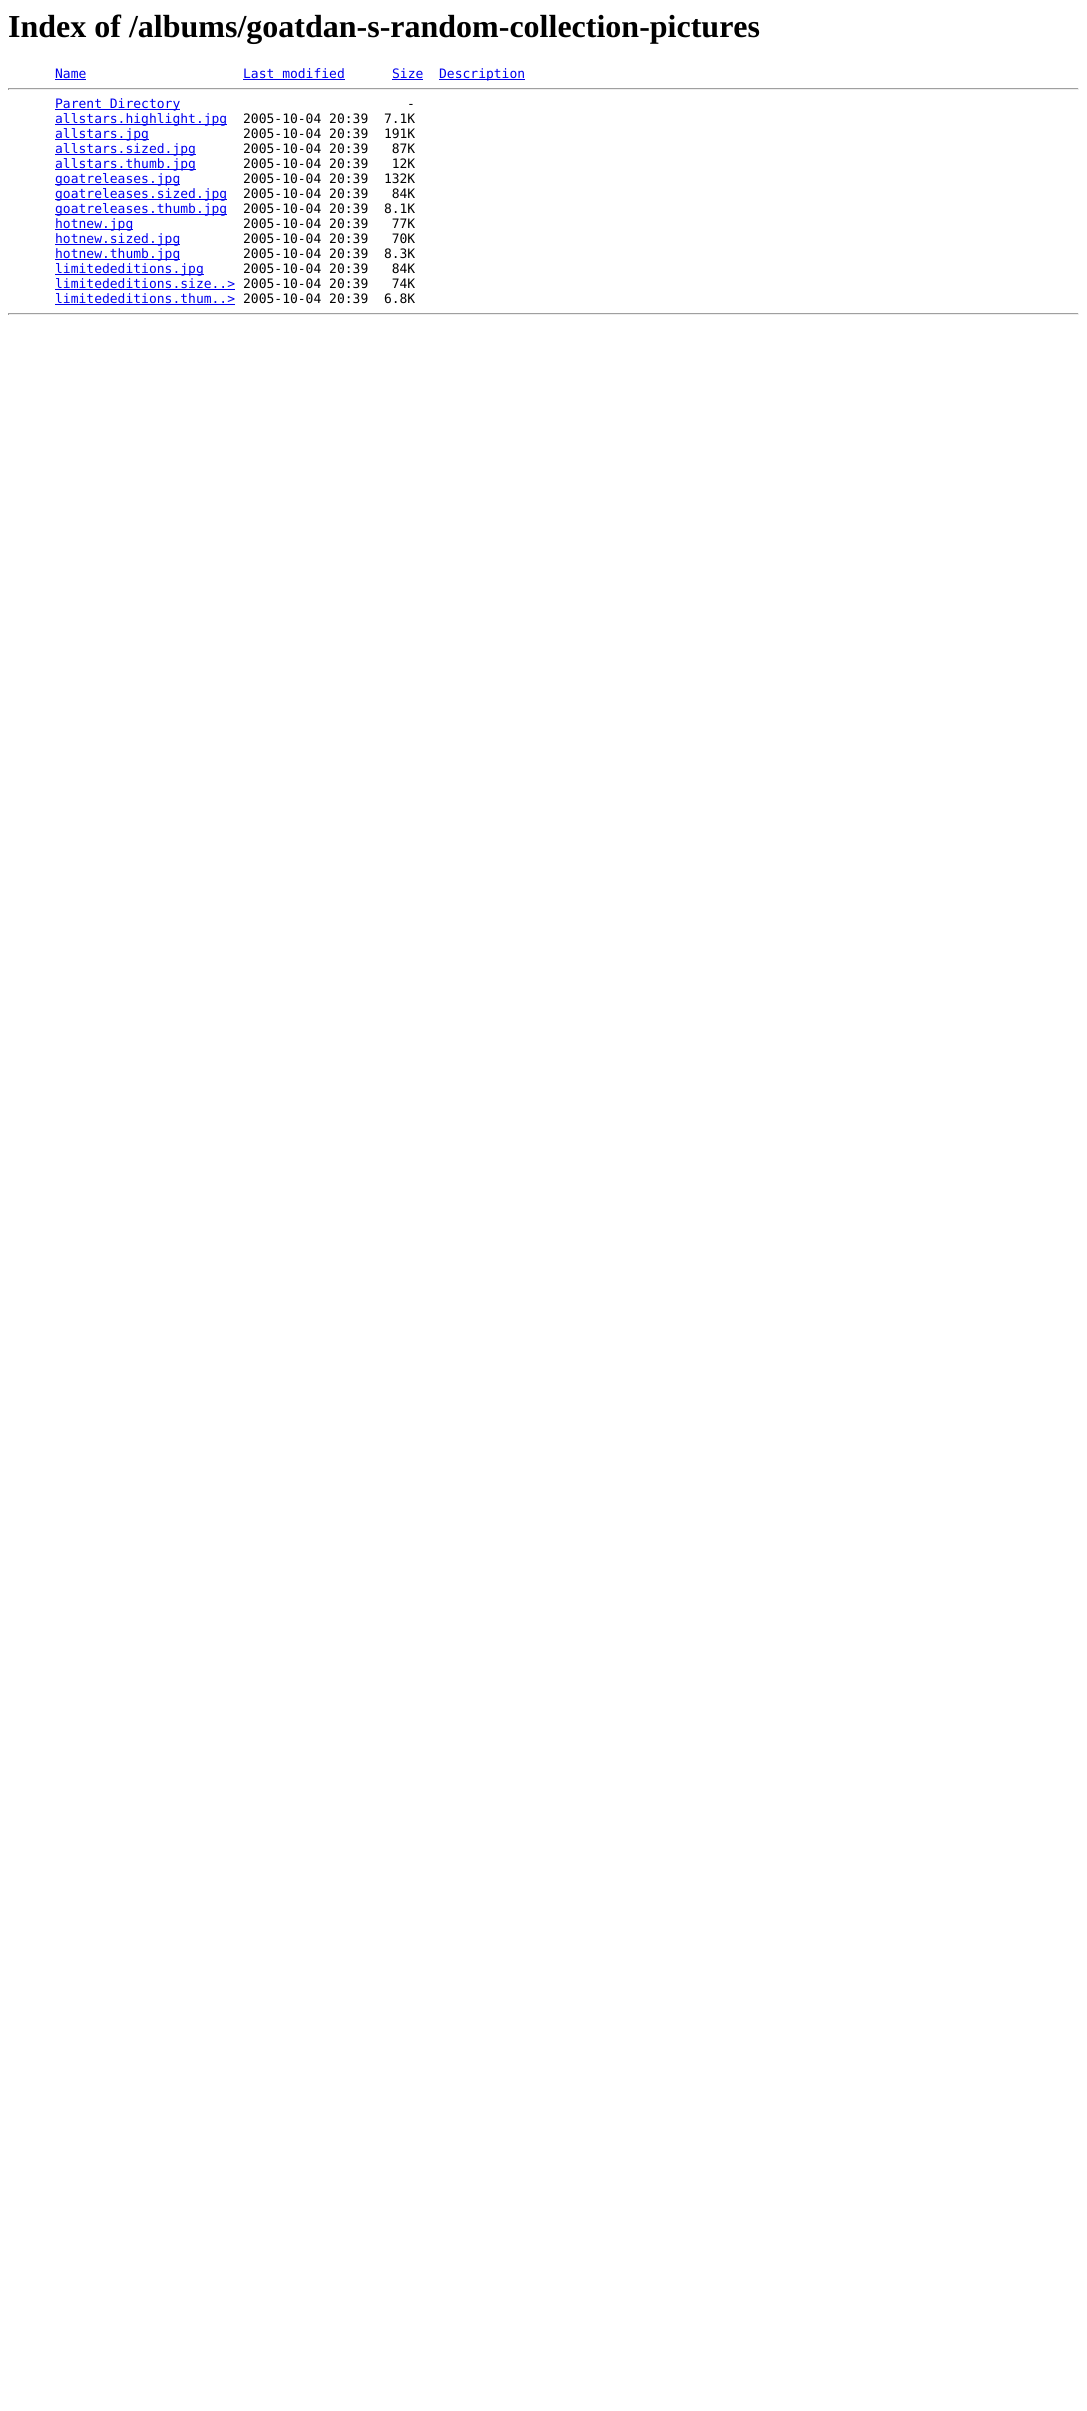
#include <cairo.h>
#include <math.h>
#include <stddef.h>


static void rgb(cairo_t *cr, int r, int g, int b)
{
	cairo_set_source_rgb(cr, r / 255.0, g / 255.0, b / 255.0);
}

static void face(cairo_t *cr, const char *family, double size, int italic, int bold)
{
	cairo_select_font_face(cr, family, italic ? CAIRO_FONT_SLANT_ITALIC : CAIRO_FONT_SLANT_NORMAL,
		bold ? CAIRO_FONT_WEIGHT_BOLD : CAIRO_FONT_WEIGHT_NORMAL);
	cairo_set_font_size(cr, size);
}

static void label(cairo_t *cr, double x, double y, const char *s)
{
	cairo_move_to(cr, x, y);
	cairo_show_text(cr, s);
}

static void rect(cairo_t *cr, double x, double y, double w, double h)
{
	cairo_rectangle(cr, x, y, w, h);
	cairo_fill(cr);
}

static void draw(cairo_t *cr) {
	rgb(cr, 255, 255, 255);
	cairo_paint(cr);
	face(cr, "Liberation Serif", 32, 0, 1);
	rgb(cr, 0, 0, 0);
	label(cr, 8, 37, "Index of /albums/goatdan-s-random-collection-pictures");
	face(cr, "DejaVu Sans Mono", 13, 0, 0);
	rgb(cr, 0, 0, 238);
	label(cr, 55, 78, "Name");
	rect(cr, 55, 79, 31, 1);
	label(cr, 243, 78, "Last modified");
	rect(cr, 243, 79, 102, 1);
	label(cr, 392, 78, "Size");
	rect(cr, 392, 79, 31, 1);
	rect(cr, 439, 79, 86, 1);
	label(cr, 439, 78, "Description");
	rgb(cr, 159, 159, 159);
	rect(cr, 8, 88, 1071, 1);
	rgb(cr, 238, 238, 238);
	rect(cr, 1078, 88, 1, 2);
	rect(cr, 8, 89, 1071, 1);
	rgb(cr, 159, 159, 159);
	rect(cr, 8, 88, 1, 2);
	rgb(cr, 0, 0, 238);
	rect(cr, 55, 109, 125, 1);
	label(cr, 55, 108, "Parent Directory");
	rgb(cr, 0, 0, 0);
	label(cr, 407, 108, "-");
	rgb(cr, 0, 0, 238);
	rect(cr, 55, 124, 172, 1);
	label(cr, 55, 123, "allstars.highlight.jpg");
	rgb(cr, 0, 0, 0);
	label(cr, 243, 123, "2005-10-04 20:39  7.1K");
	rgb(cr, 0, 0, 238);
	rect(cr, 55, 139, 94, 1);
	label(cr, 55, 138, "allstars.jpg");
	rgb(cr, 0, 0, 0);
	label(cr, 243, 138, "2005-10-04 20:39  191K");
	rgb(cr, 0, 0, 238);
	rect(cr, 55, 154, 141, 1);
	label(cr, 55, 153, "allstars.sized.jpg");
	rgb(cr, 0, 0, 0);
	label(cr, 243, 153, "2005-10-04 20:39   87K");
	rgb(cr, 0, 0, 238);
	rect(cr, 55, 169, 141, 1);
	label(cr, 55, 168, "allstars.thumb.jpg");
	rgb(cr, 0, 0, 0);
	label(cr, 243, 168, "2005-10-04 20:39   12K");
	rgb(cr, 0, 0, 238);
	rect(cr, 55, 184, 125, 1);
	label(cr, 55, 183, "goatreleases.jpg");
	rgb(cr, 0, 0, 0);
	label(cr, 243, 183, "2005-10-04 20:39  132K");
	rgb(cr, 0, 0, 238);
	rect(cr, 55, 199, 172, 1);
	label(cr, 55, 198, "goatreleases.sized.jpg");
	rgb(cr, 0, 0, 0);
	label(cr, 243, 198, "2005-10-04 20:39   84K");
	rgb(cr, 0, 0, 238);
	rect(cr, 55, 214, 172, 1);
	label(cr, 55, 213, "goatreleases.thumb.jpg");
	rgb(cr, 0, 0, 0);
	label(cr, 243, 213, "2005-10-04 20:39  8.1K");
	rgb(cr, 0, 0, 238);
	rect(cr, 55, 229, 78, 1);
	label(cr, 55, 228, "hotnew.jpg");
	rgb(cr, 0, 0, 0);
	label(cr, 243, 228, "2005-10-04 20:39   77K");
	rgb(cr, 0, 0, 238);
	rect(cr, 55, 244, 125, 1);
	label(cr, 55, 243, "hotnew.sized.jpg");
	rgb(cr, 0, 0, 0);
	label(cr, 243, 243, "2005-10-04 20:39   70K");
	rgb(cr, 0, 0, 238);
	rect(cr, 55, 259, 125, 1);
	label(cr, 55, 258, "hotnew.thumb.jpg");
	rgb(cr, 0, 0, 0);
	label(cr, 243, 258, "2005-10-04 20:39  8.3K");
	rgb(cr, 0, 0, 238);
	rect(cr, 55, 274, 149, 1);
	label(cr, 55, 273, "limitededitions.jpg");
	rgb(cr, 0, 0, 0);
	label(cr, 243, 273, "2005-10-04 20:39   84K");
	rgb(cr, 0, 0, 238);
	label(cr, 55, 288, "limitededitions.size..>");
	rect(cr, 55, 289, 180, 1);
	rgb(cr, 0, 0, 0);
	label(cr, 243, 288, "2005-10-04 20:39   74K");
	rgb(cr, 0, 0, 238);
	label(cr, 55, 303, "limitededitions.thum..>");
	rect(cr, 55, 304, 180, 1);
	rgb(cr, 0, 0, 0);
	label(cr, 243, 303, "2005-10-04 20:39  6.8K");
	rgb(cr, 159, 159, 159);
	rect(cr, 8, 313, 1071, 1);
	rgb(cr, 238, 238, 238);
	rect(cr, 1078, 313, 1, 2);
	rect(cr, 8, 314, 1071, 1);
	rgb(cr, 159, 159, 159);
	rect(cr, 8, 313, 1, 2);
}

int main(void) {
	cairo_surface_t *surface = cairo_image_surface_create(CAIRO_FORMAT_RGB24, 1087, 2411);
	cairo_t *cr = cairo_create(surface);
	cairo_font_options_t *options = cairo_font_options_create();
	cairo_font_options_set_hint_metrics(options, CAIRO_HINT_METRICS_OFF);
	cairo_font_options_set_hint_style(options, CAIRO_HINT_STYLE_NONE);
	cairo_set_font_options(cr, options);
	cairo_set_miter_limit(cr, 4);
	draw(cr);
	cairo_surface_write_to_png(surface, "render.png");
	cairo_font_options_destroy(options);
	cairo_destroy(cr);
	cairo_surface_destroy(surface);
	return 0;
}
